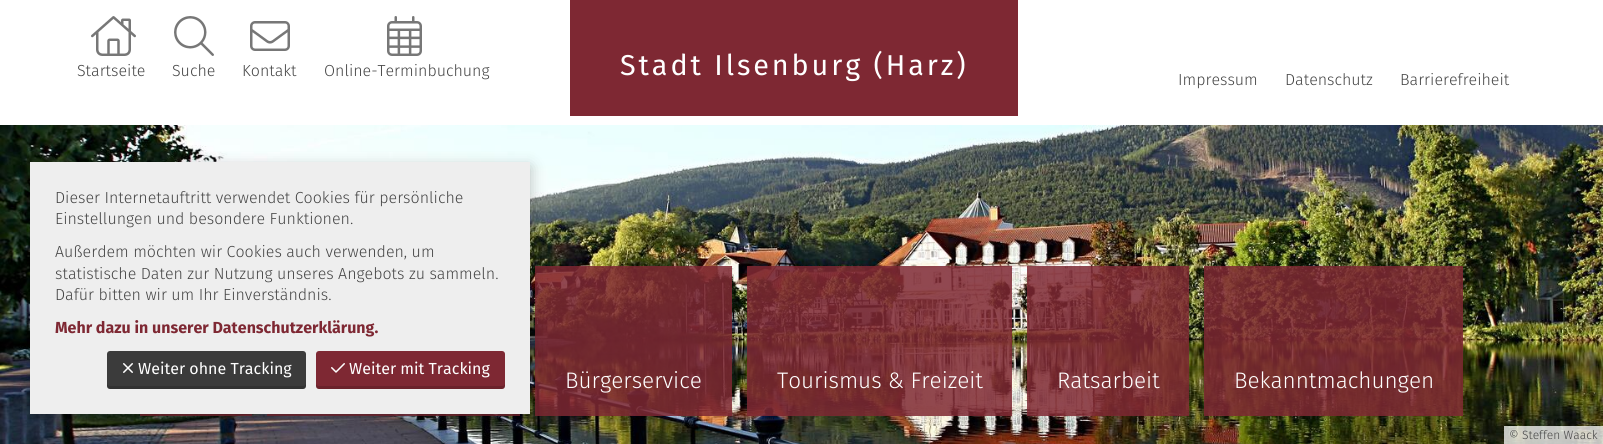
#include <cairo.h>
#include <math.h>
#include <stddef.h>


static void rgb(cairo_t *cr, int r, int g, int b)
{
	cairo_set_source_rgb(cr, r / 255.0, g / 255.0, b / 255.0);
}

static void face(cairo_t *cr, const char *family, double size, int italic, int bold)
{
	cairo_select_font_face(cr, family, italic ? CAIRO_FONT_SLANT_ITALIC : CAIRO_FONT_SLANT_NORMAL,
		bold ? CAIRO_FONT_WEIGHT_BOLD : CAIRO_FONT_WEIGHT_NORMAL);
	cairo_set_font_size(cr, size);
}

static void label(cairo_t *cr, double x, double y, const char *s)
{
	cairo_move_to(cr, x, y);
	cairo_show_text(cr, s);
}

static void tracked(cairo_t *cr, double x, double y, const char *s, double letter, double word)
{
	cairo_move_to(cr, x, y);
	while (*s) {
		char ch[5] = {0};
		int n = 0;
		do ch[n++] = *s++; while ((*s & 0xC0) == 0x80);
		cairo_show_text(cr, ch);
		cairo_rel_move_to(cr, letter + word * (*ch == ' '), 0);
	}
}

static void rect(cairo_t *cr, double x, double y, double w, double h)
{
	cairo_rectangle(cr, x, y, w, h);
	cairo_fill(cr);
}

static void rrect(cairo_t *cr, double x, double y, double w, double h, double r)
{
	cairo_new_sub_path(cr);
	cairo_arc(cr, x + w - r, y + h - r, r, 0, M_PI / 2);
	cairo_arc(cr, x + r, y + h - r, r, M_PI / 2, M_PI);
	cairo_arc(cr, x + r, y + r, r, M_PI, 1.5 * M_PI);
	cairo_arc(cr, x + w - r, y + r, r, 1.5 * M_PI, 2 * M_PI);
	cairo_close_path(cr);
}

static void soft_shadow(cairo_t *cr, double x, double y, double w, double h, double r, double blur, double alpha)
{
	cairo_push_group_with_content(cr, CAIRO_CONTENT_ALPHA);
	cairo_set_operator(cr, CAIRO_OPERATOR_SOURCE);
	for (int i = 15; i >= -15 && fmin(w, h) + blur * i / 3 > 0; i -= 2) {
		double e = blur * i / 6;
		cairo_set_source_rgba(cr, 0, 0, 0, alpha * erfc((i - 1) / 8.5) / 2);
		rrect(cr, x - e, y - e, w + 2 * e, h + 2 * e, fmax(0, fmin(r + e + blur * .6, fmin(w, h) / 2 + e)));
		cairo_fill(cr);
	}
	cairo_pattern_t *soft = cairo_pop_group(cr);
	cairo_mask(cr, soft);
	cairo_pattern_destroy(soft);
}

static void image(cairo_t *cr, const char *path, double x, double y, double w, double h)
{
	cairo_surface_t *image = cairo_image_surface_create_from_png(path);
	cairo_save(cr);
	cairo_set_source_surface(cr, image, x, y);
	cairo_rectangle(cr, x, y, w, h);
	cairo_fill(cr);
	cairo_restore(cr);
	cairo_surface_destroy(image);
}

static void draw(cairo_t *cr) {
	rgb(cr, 255, 255, 255);
	cairo_paint(cr);
	image(cr, "image0.png", 91, 16, 45, 40);
	face(cr, "Fira Sans Light", 16, 0, 0);
	rgb(cr, 68, 68, 68);
	label(cr, 77, 76, "Startseite");
	image(cr, "image1.png", 174, 16, 40, 40);
	label(cr, 172, 76, "Suche");
	image(cr, "image2.png", 250, 21, 40, 30);
	label(cr, 242, 76, "Kontakt");
	image(cr, "image3.png", 387, 16, 35, 40);
	label(cr, 324, 76, "Online-Terminbuchung");
	rgb(cr, 126, 40, 51);
	rect(cr, 570, 0, 448, 116);
	face(cr, "Fira Sans", 28.75, 0, 0);
	rgb(cr, 255, 255, 255);
	tracked(cr, 620, 75, "Stadt Ilsenburg (Harz)", 2.9, 0);
	face(cr, "Fira Sans Light", 16, 0, 0);
	rgb(cr, 68, 68, 68);
	label(cr, 1178, 85, "Impressum");
	label(cr, 1285, 85, "Datenschutz");
	label(cr, 1400, 85, "Barrierefreiheit");
	image(cr, "image4.png", 0, 125, 1603, 319);
	cairo_set_source_rgba(cr, 0.494, 0.157, 0.2, 0.85);
	rect(cr, 535, 266, 197, 150);
	face(cr, "Fira Sans Light", 22.5, 0, 0);
	rgb(cr, 255, 255, 255);
	label(cr, 565, 388, "Bürgerservice");
	cairo_set_source_rgba(cr, 0.494, 0.157, 0.2, 0.85);
	rect(cr, 747, 266, 265, 150);
	rgb(cr, 255, 255, 255);
	label(cr, 777, 388, "Tourismus & Freizeit");
	cairo_set_source_rgba(cr, 0.494, 0.157, 0.2, 0.85);
	rect(cr, 1027, 266, 162, 150);
	rgb(cr, 255, 255, 255);
	label(cr, 1057, 388, "Ratsarbeit");
	cairo_set_source_rgba(cr, 0.494, 0.157, 0.2, 0.85);
	rect(cr, 1204, 266, 259, 150);
	rgb(cr, 255, 255, 255);
	label(cr, 1234, 388, "Bekanntmachungen");
	cairo_set_source_rgba(cr, 0.494, 0.157, 0.2, 0.85);
	rect(cr, 140, 414, 112, 2);
	rect(cr, 267, 414, 253, 2);
	cairo_set_source_rgba(cr, 1, 1, 1, 0.75);
	rect(cr, 1504, 426, 99, 18);
	face(cr, "Fira Sans Light", 12, 0, 0);
	rgb(cr, 68, 68, 68);
	label(cr, 1509, 439, "© Steffen Waack");
	rgb(cr, 0, 0, 0);
	soft_shadow(cr, 30, 167, 500, 252, 0, 7.5, 0.25);
	rgb(cr, 238, 238, 238);
	rect(cr, 30, 162, 500, 252);
	face(cr, "Fira Sans Light", 16, 0, 0);
	rgb(cr, 68, 68, 68);
	label(cr, 55, 203, "Dieser Internetauftritt verwendet Cookies für persönliche");
	label(cr, 55, 224, "Einstellungen und besondere Funktionen.");
	label(cr, 55, 257, "Außerdem möchten wir Cookies auch verwenden, um");
	label(cr, 55, 279, "statistische Daten zur Nutzung unseres Angebots zu sammeln.");
	label(cr, 55, 300, "Dafür bitten wir um Ihr Einverständnis.");
	face(cr, "Fira Sans", 16, 0, 1);
	rgb(cr, 126, 40, 51);
	label(cr, 55, 333, "Mehr dazu in unserer Datenschutzerklärung.");
	rgb(cr, 59, 59, 59);
	rrect(cr, 107, 351, 199, 38, 3);
	cairo_fill(cr);
	cairo_set_source_rgba(cr, 0, 0, 0, 0.15);
	cairo_new_path(cr);
	cairo_move_to(cr, 107, 383);
	cairo_line_to(cr, 107, 386);
	cairo_curve_to(cr, 107, 388, 108, 389, 110, 389);
	cairo_line_to(cr, 303, 389);
	cairo_curve_to(cr, 305, 389, 306, 388, 306, 386);
	cairo_line_to(cr, 306, 383);
	cairo_curve_to(cr, 306, 385, 305, 386, 303, 386);
	cairo_line_to(cr, 110, 386);
	cairo_curve_to(cr, 108, 386, 107, 385, 107, 383);
	cairo_close_path(cr);
	cairo_fill(cr);
	image(cr, "image5.png", 123, 363, 10, 10);
	face(cr, "Fira Sans", 16, 0, 0);
	rgb(cr, 255, 255, 255);
	label(cr, 138, 374, "Weiter ohne Tracking");
	rgb(cr, 126, 40, 51);
	rrect(cr, 316, 351, 189, 38, 3);
	cairo_fill(cr);
	cairo_set_source_rgba(cr, 0, 0, 0, 0.15);
	cairo_new_path(cr);
	cairo_move_to(cr, 316, 383);
	cairo_line_to(cr, 316, 386);
	cairo_curve_to(cr, 316, 388, 317, 389, 319, 389);
	cairo_line_to(cr, 502, 389);
	cairo_curve_to(cr, 504, 389, 505, 388, 505, 386);
	cairo_line_to(cr, 505, 383);
	cairo_curve_to(cr, 505, 385, 504, 386, 502, 386);
	cairo_line_to(cr, 319, 386);
	cairo_curve_to(cr, 317, 386, 316, 385, 316, 383);
	cairo_close_path(cr);
	cairo_fill(cr);
	image(cr, "image6.png", 331, 363, 14, 10);
	rgb(cr, 255, 255, 255);
	label(cr, 349, 374, "Weiter mit Tracking");
}

int main(void) {
	cairo_surface_t *surface = cairo_image_surface_create(CAIRO_FORMAT_RGB24, 1603, 444);
	cairo_t *cr = cairo_create(surface);
	cairo_font_options_t *options = cairo_font_options_create();
	cairo_font_options_set_hint_metrics(options, CAIRO_HINT_METRICS_OFF);
	cairo_font_options_set_hint_style(options, CAIRO_HINT_STYLE_NONE);
	cairo_set_font_options(cr, options);
	cairo_set_miter_limit(cr, 4);
	draw(cr);
	cairo_surface_write_to_png(surface, "render.png");
	cairo_font_options_destroy(options);
	cairo_destroy(cr);
	cairo_surface_destroy(surface);
	return 0;
}
